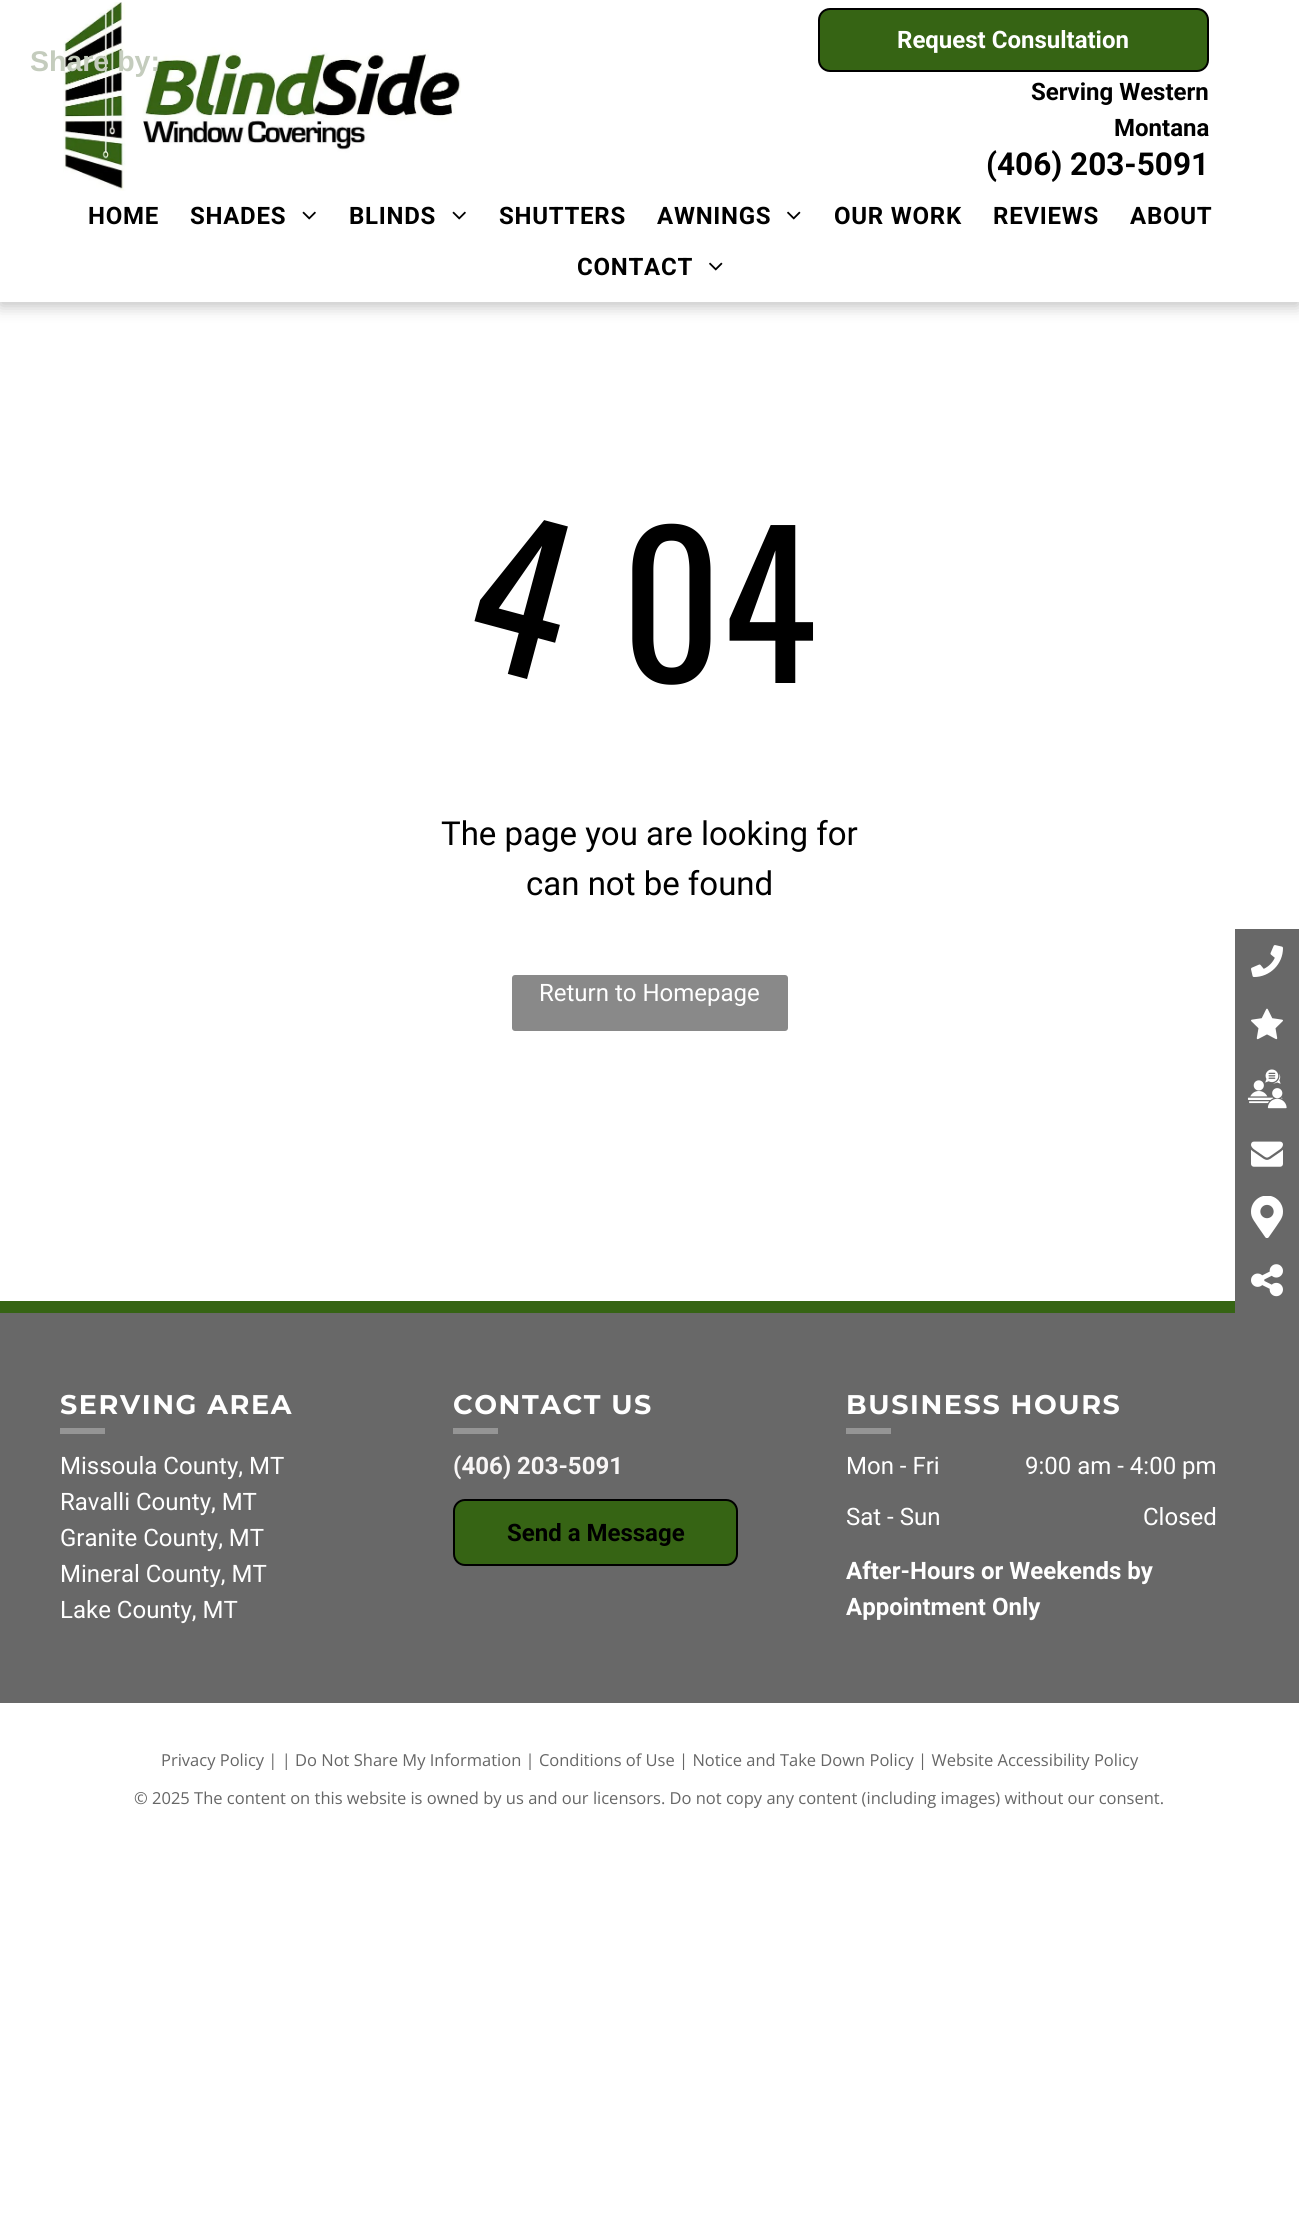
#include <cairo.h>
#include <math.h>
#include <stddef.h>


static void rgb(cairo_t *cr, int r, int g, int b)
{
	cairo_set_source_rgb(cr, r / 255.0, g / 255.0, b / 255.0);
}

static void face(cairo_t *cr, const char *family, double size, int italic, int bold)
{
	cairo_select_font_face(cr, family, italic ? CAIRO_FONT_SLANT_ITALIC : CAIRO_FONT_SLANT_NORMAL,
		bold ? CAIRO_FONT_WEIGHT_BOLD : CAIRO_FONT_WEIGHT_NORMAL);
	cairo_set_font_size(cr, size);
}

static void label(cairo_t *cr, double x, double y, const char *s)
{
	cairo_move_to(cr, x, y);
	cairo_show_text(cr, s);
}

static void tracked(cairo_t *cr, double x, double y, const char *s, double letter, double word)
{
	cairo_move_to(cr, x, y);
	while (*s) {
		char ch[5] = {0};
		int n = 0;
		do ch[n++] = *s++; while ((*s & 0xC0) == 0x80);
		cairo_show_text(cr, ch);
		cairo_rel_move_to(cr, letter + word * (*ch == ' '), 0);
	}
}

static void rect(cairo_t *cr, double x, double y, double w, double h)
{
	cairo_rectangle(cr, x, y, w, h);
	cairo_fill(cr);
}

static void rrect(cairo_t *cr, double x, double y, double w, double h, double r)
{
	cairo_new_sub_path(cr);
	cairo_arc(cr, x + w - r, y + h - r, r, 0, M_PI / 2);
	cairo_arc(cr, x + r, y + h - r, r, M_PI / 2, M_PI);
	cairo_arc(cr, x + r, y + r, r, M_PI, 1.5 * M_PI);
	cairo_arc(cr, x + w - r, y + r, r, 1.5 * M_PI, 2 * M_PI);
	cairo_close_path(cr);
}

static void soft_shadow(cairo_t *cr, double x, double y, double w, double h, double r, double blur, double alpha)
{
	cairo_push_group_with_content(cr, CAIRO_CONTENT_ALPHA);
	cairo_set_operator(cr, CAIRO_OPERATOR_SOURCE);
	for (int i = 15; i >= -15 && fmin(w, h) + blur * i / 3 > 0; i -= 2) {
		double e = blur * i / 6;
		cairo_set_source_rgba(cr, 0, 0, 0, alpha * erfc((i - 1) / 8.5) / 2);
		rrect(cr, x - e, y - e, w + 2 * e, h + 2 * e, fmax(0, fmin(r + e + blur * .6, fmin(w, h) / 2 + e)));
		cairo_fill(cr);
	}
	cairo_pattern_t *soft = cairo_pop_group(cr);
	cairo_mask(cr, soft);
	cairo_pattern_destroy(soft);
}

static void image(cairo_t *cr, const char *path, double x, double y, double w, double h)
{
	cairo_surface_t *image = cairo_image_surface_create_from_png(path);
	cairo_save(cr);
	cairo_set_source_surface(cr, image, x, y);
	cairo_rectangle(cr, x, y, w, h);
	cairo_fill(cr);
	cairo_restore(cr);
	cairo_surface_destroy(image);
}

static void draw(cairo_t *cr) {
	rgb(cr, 255, 255, 255);
	cairo_paint(cr);
	rgb(cr, 0, 0, 0);
	soft_shadow(cr, 0, 5, 1299, 301, 0, 8, 0.25);
	rgb(cr, 255, 255, 255);
	rect(cr, 0, 0, 1299, 302);
	image(cr, "image0.png", 63, 2, 398, 189);
	rgb(cr, 54, 100, 20);
	rrect(cr, 819, 9, 389, 62, 11);
	cairo_fill_preserve(cr);
	rgb(cr, 0, 0, 0);
	cairo_stroke(cr);
	face(cr, "Roboto", 24, 0, 1);
	rgb(cr, 255, 255, 255);
	label(cr, 897, 48, "Request Consultation");
	rgb(cr, 0, 0, 0);
	label(cr, 1031, 100, "Serving Western");
	label(cr, 1114, 136, "Montana");
	face(cr, "Roboto", 31.5, 0, 1);
	label(cr, 986, 175, "(406) 203-5091");
	face(cr, "Roboto", 24, 0, 1);
	tracked(cr, 88, 224, "HOME", 0.75, 0);
	tracked(cr, 190, 224, "SHADES", 0.75, 0);
	image(cr, "image1.png", 302, 211, 14, 9);
	tracked(cr, 349, 224, "BLINDS", 0.75, 0);
	image(cr, "image1.png", 452, 211, 14, 9);
	tracked(cr, 499, 224, "SHUTTERS", 0.75, 0);
	tracked(cr, 657, 224, "AWNINGS", 0.75, 0);
	image(cr, "image2.png", 787, 211, 14, 9);
	tracked(cr, 834, 224, "OUR WORK", 0.75, 0);
	tracked(cr, 993, 224, "REVIEWS", 0.75, 0);
	tracked(cr, 1130, 224, "ABOUT", 0.75, 0);
	tracked(cr, 577, 275, "CONTACT", 0.75, 0);
	image(cr, "image2.png", 709, 262, 14, 9);
	face(cr, "Oswald", 195, 0, 0);
	cairo_save(cr);
	cairo_translate(cr, 456, 660);
	cairo_rotate(cr, 15 * M_PI / 180);
	label(cr, 0, 0, "4");
	cairo_restore(cr);
	label(cr, 621, 683, "04");
	face(cr, "Roboto", 33, 0, 0);
	label(cr, 441, 845, "The page you are looking for");
	label(cr, 526, 895, "can not be found");
	rgb(cr, 137, 137, 137);
	rrect(cr, 512, 975, 276, 56, 3);
	cairo_fill(cr);
	face(cr, "Roboto", 24, 0, 0);
	rgb(cr, 255, 255, 255);
	label(cr, 539, 1001, "Return to Homepage");
	rgb(cr, 104, 104, 104);
	rect(cr, 1235, 929, 64, 384);
	image(cr, "image3.png", 1251, 945, 32, 32);
	image(cr, "image4.png", 1251, 1008, 32, 32);
	image(cr, "image5.png", 1247, 1069, 40, 40);
	image(cr, "image6.png", 1251, 1141, 32, 26);
	image(cr, "image7.png", 1251, 1196, 32, 42);
	image(cr, "image8.png", 1251, 1264, 32, 33);
	rect(cr, 0, 1313, 1299, 390);
	rgb(cr, 54, 100, 20);
	rect(cr, 0, 1301, 1235, 12);
	face(cr, "Montserrat", 27, 0, 1);
	rgb(cr, 255, 255, 255);
	tracked(cr, 60, 1414, "SERVING AREA", 1.6, 0);
	rgb(cr, 149, 149, 149);
	rect(cr, 60, 1428, 45, 6);
	face(cr, "Roboto", 24, 0, 0);
	rgb(cr, 255, 255, 255);
	label(cr, 60, 1474, "Missoula County, MT");
	label(cr, 60, 1510, "Ravalli County, MT");
	label(cr, 60, 1546, "Granite County, MT");
	label(cr, 60, 1582, "Mineral County, MT");
	label(cr, 60, 1618, "Lake County, MT");
	face(cr, "Montserrat", 27, 0, 1);
	tracked(cr, 453, 1414, "CONTACT US", 1.6, 0);
	rgb(cr, 149, 149, 149);
	rect(cr, 453, 1428, 45, 6);
	face(cr, "Roboto", 24, 0, 1);
	rgb(cr, 248, 246, 246);
	label(cr, 453, 1474, "(406) 203-5091");
	rgb(cr, 54, 100, 20);
	rrect(cr, 454, 1500, 283, 65, 11);
	cairo_fill_preserve(cr);
	rgb(cr, 0, 0, 0);
	cairo_stroke(cr);
	label(cr, 507, 1541, "Send a Message");
	face(cr, "Montserrat", 27, 0, 1);
	rgb(cr, 255, 255, 255);
	tracked(cr, 846, 1414, "BUSINESS HOURS", 1.6, 0);
	rgb(cr, 149, 149, 149);
	rect(cr, 846, 1428, 45, 6);
	face(cr, "Roboto", 24, 0, 0);
	rgb(cr, 255, 255, 255);
	label(cr, 846, 1474, "Mon - Fri");
	label(cr, 1025, 1474, "9:00 am - 4:00 pm");
	label(cr, 846, 1525, "Sat - Sun");
	label(cr, 1143, 1525, "Closed");
	face(cr, "Roboto", 24, 0, 1);
	label(cr, 846, 1579, "After-Hours or Weekends by");
	label(cr, 846, 1615, "Appointment Only");
	face(cr, "Open Sans", 16.5, 0, 0);
	rgb(cr, 102, 102, 102);
	label(cr, 161, 1766, "Privacy Policy | | Do Not Share My Information | Conditions of Use | Notice and Take Down Policy | Website Accessibility Policy");
	label(cr, 134, 1804, "© 2025 The content on this website is owned by us and our licensors. Do not copy any content (including images) without our consent.");
	face(cr, "Liberation Sans", 28.5, 0, 1);
	rgb(cr, 196, 204, 189);
	label(cr, 30, 71, "Share by:");
}

int main(void) {
	cairo_surface_t *surface = cairo_image_surface_create(CAIRO_FORMAT_RGB24, 1299, 2240);
	cairo_t *cr = cairo_create(surface);
	cairo_font_options_t *options = cairo_font_options_create();
	cairo_font_options_set_hint_metrics(options, CAIRO_HINT_METRICS_OFF);
	cairo_font_options_set_hint_style(options, CAIRO_HINT_STYLE_NONE);
	cairo_set_font_options(cr, options);
	cairo_set_miter_limit(cr, 4);
	draw(cr);
	cairo_surface_write_to_png(surface, "render.png");
	cairo_font_options_destroy(options);
	cairo_destroy(cr);
	cairo_surface_destroy(surface);
	return 0;
}
